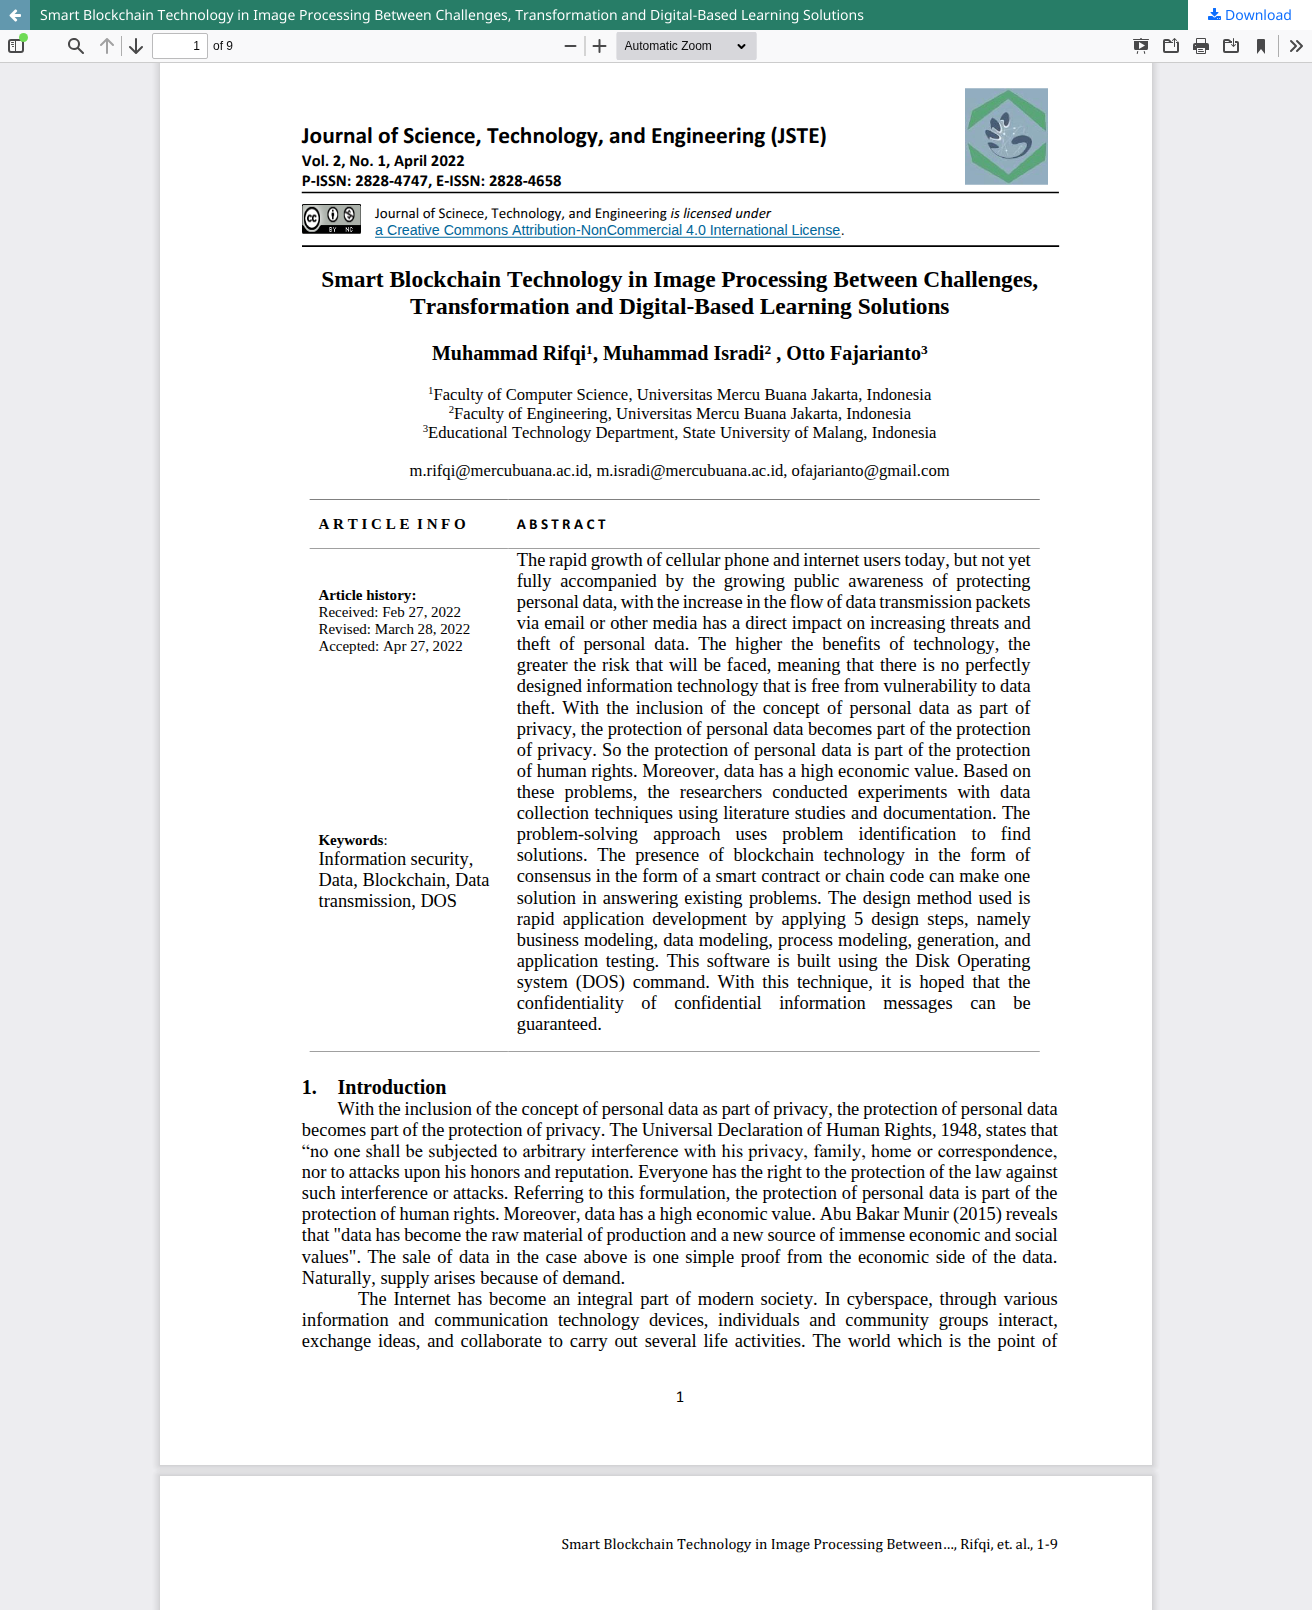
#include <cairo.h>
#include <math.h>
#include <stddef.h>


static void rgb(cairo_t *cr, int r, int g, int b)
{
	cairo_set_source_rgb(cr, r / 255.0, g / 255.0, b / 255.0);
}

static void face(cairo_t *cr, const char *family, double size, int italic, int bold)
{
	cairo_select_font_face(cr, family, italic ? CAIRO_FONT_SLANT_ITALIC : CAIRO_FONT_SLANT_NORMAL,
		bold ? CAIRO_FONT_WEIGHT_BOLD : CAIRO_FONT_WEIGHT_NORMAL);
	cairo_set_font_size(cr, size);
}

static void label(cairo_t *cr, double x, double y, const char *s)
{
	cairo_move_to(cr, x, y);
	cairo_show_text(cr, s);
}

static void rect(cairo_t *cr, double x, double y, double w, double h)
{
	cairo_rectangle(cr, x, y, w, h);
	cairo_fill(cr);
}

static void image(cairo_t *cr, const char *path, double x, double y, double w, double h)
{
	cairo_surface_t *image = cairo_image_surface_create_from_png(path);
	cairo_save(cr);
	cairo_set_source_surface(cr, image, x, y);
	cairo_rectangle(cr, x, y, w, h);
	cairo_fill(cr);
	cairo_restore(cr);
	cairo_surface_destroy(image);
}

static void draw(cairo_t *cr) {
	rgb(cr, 255, 255, 255);
	cairo_paint(cr);
	rgb(cr, 39, 125, 103);
	rect(cr, 30, 0, 1158, 30);
	rgb(cr, 98, 152, 174);
	rect(cr, 0, 0, 30, 30);
	image(cr, "image0.png", 9, 9, 12, 13);
	face(cr, "Noto Sans", 14, 0, 0);
	rgb(cr, 255, 255, 255);
	label(cr, 40, 20, "Smart Blockchain Technology in Image Processing Between Challenges, Transformation and Digital-Based Learning Solutions");
	image(cr, "image1.png", 1208, 8, 13, 12);
	rgb(cr, 13, 110, 253);
	label(cr, 1225, 20, "Download");
	image(cr, "image2.png", 0, 30, 1312, 1580);
}

int main(void) {
	cairo_surface_t *surface = cairo_image_surface_create(CAIRO_FORMAT_RGB24, 1312, 1610);
	cairo_t *cr = cairo_create(surface);
	cairo_font_options_t *options = cairo_font_options_create();
	cairo_font_options_set_hint_metrics(options, CAIRO_HINT_METRICS_OFF);
	cairo_font_options_set_hint_style(options, CAIRO_HINT_STYLE_NONE);
	cairo_set_font_options(cr, options);
	cairo_set_miter_limit(cr, 4);
	draw(cr);
	cairo_surface_write_to_png(surface, "render.png");
	cairo_font_options_destroy(options);
	cairo_destroy(cr);
	cairo_surface_destroy(surface);
	return 0;
}
